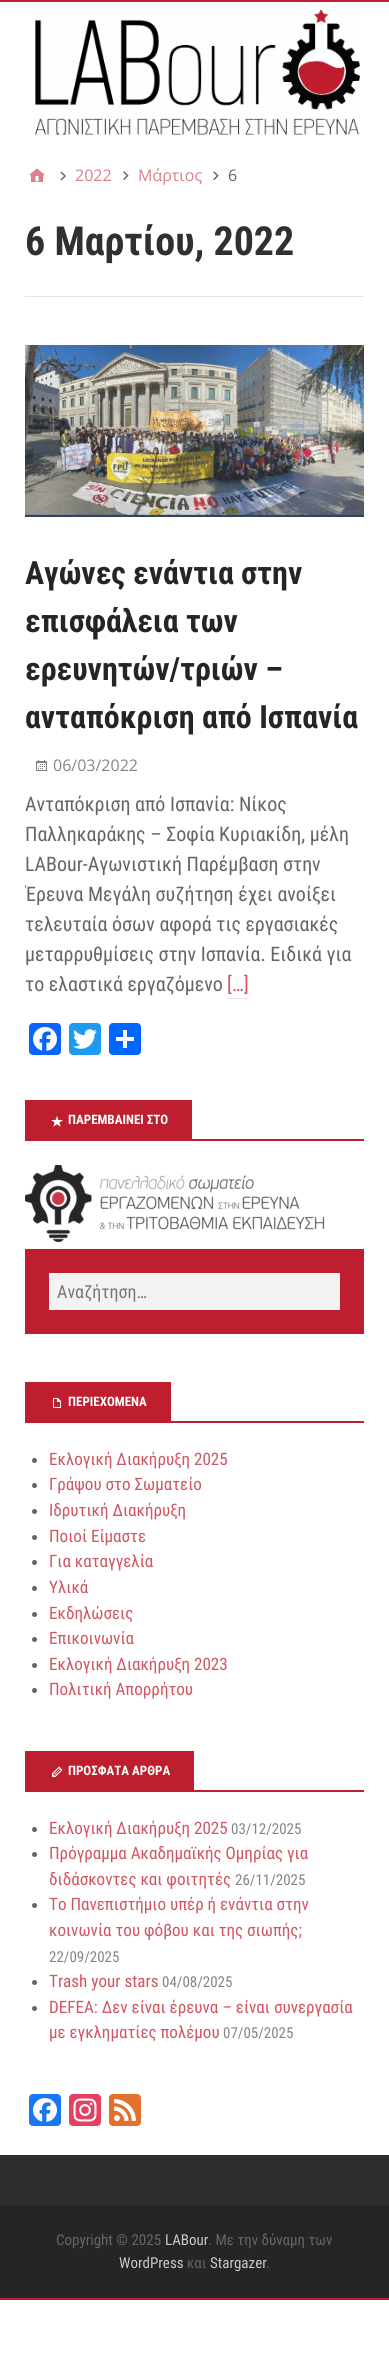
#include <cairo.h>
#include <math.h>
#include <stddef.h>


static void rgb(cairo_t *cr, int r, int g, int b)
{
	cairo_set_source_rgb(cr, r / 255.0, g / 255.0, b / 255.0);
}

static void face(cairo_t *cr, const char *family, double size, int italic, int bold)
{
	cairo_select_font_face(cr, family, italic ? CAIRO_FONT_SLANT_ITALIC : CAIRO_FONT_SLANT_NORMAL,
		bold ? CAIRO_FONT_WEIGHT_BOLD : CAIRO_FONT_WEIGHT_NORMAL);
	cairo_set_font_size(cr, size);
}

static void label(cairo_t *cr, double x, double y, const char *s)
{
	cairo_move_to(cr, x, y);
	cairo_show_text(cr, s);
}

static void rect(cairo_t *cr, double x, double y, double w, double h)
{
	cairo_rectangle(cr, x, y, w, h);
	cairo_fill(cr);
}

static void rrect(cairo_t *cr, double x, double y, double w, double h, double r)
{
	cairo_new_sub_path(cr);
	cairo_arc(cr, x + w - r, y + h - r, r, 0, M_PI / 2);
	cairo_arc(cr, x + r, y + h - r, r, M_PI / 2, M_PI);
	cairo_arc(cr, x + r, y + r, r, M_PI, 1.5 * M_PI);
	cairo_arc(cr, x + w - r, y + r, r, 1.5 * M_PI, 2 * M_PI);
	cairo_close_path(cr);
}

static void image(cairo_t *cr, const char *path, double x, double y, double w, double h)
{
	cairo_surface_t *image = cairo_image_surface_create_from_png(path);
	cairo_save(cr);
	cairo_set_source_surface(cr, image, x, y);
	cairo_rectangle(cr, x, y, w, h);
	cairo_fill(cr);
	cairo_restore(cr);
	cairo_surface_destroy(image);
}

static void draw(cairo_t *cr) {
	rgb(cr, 255, 255, 255);
	cairo_paint(cr);
	rgb(cr, 45, 45, 45);
	rect(cr, 0, 2155, 389, 50);
	rgb(cr, 191, 30, 46);
	rect(cr, 0, 0, 389, 2);
	rect(cr, 0, 2298, 389, 2);
	image(cr, "image0.png", 35, 9, 325, 126);
	image(cr, "image1.png", 29, 168, 16, 14);
	image(cr, "image2.png", 60, 171, 6, 10);
	face(cr, "Open Sans", 16, 0, 0);
	rgb(cr, 219, 128, 137);
	label(cr, 75, 181, "2022");
	image(cr, "image3.png", 123, 171, 6, 9);
	label(cr, 138, 181, "Μάρτιος");
	image(cr, "image4.png", 213, 171, 6, 10);
	rgb(cr, 101, 101, 101);
	label(cr, 228, 181, "6");
	rgb(cr, 227, 227, 227);
	rect(cr, 25, 296, 339, 1);
	face(cr, "Roboto Condensed", 40, 0, 1);
	rgb(cr, 48, 48, 48);
	label(cr, 25, 255, "6 Μαρτίου, 2022");
	image(cr, "image5.png", 25, 345, 339, 172);
	face(cr, "Roboto Condensed", 32, 0, 1);
	rgb(cr, 37, 37, 37);
	label(cr, 25, 584, "Αγώνες ενάντια στην");
	label(cr, 25, 632, "επισφάλεια των");
	label(cr, 25, 680, "ερευνητών/τριών –");
	label(cr, 25, 728, "ανταπόκριση από Ισπανία");
	image(cr, "image6.png", 36, 760, 11, 11);
	face(cr, "Open Sans", 16, 0, 0);
	rgb(cr, 133, 133, 133);
	label(cr, 53, 771, "06/03/2022");
	face(cr, "Roboto Condensed", 20, 0, 0);
	rgb(cr, 101, 101, 101);
	label(cr, 25, 811, "Ανταπόκριση από Ισπανία: Νίκος");
	label(cr, 25, 841, "Παλληκαράκης – Σοφία Κυριακίδη, μέλη");
	label(cr, 25, 871, "LABour-Αγωνιστική Παρέμβαση στην");
	cairo_save(cr);
	cairo_rectangle(cr, 25, 345, 339, 731);
	cairo_clip(cr);
	label(cr, 25, 901, "Έρευνα Μεγάλη συζήτηση έχει ανοίξει");
	cairo_restore(cr);
	label(cr, 25, 931, "τελευταία όσων αφορά τις εργασιακές");
	label(cr, 25, 961, "μεταρρυθμίσεις στην Ισπανία. Ειδικά για");
	label(cr, 25, 991, "το ελαστικά εργαζόμενο");
	rgb(cr, 207, 86, 98);
	label(cr, 227, 991, "[…]");
	rgb(cr, 245, 221, 224);
	rect(cr, 227, 998, 22, 1);
	rgb(cr, 8, 102, 255);
	rrect(cr, 29, 1023, 32, 32, 4);
	cairo_fill(cr);
	image(cr, "image7.png", 33, 1027, 24, 24);
	rgb(cr, 29, 155, 240);
	rrect(cr, 69, 1023, 32, 32, 4);
	cairo_fill(cr);
	image(cr, "image8.png", 73, 1029, 24, 20);
	rgb(cr, 1, 102, 255);
	rrect(cr, 109, 1023, 32, 32, 4);
	cairo_fill(cr);
	rgb(cr, 255, 255, 255);
	rect(cr, 123, 1030, 4, 18);
	rect(cr, 116, 1037, 18, 4);
	rgb(cr, 191, 30, 46);
	rect(cr, 25, 1139, 339, 2);
	rect(cr, 25, 1100, 167, 39);
	image(cr, "image9.png", 51, 1116, 12, 11);
	face(cr, "Roboto Condensed", 13, 0, 1);
	rgb(cr, 255, 255, 255);
	label(cr, 68, 1124, "ΠΑΡΕΜΒΑΙΝΕΙ ΣΤΟ");
	image(cr, "image10.png", 25, 1165, 300, 77);
	rgb(cr, 191, 30, 46);
	rect(cr, 25, 1249, 339, 85);
	rgb(cr, 243, 243, 243);
	rect(cr, 49, 1273, 291, 37);
	face(cr, "Roboto Condensed", 18, 0, 0);
	rgb(cr, 117, 117, 117);
	label(cr, 57, 1298, "Αναζήτηση…");
	rgb(cr, 191, 30, 46);
	rect(cr, 25, 1421, 339, 2);
	rect(cr, 25, 1382, 146, 39);
	image(cr, "image11.png", 53, 1398, 8, 10);
	face(cr, "Roboto Condensed", 13, 0, 1);
	rgb(cr, 255, 255, 255);
	label(cr, 68, 1406, "ΠΕΡΙΕΧΟΜΕΝΑ");
	rgb(cr, 101, 101, 101);
	cairo_new_path(cr);
	cairo_arc(cr, 34.5, 1460.5, 2.5, 0, 2 * M_PI);
	cairo_fill(cr);
	face(cr, "Roboto Condensed", 17.1, 0, 0);
	rgb(cr, 207, 86, 98);
	label(cr, 49, 1465, "Εκλογική Διακήρυξη 2025");
	rgb(cr, 101, 101, 101);
	cairo_new_path(cr);
	cairo_arc(cr, 34.5, 1485.5, 2.5, 0, 2 * M_PI);
	cairo_fill(cr);
	rgb(cr, 207, 86, 98);
	label(cr, 49, 1490, "Γράψου στο Σωματείο");
	rgb(cr, 101, 101, 101);
	cairo_new_path(cr);
	cairo_arc(cr, 34.5, 1511.5, 2.5, 0, 2 * M_PI);
	cairo_fill(cr);
	rgb(cr, 207, 86, 98);
	label(cr, 49, 1516, "Ιδρυτική Διακήρυξη");
	rgb(cr, 101, 101, 101);
	cairo_new_path(cr);
	cairo_arc(cr, 34.5, 1537.5, 2.5, 0, 2 * M_PI);
	cairo_fill(cr);
	rgb(cr, 207, 86, 98);
	label(cr, 49, 1542, "Ποιοί Είμαστε");
	rgb(cr, 101, 101, 101);
	cairo_new_path(cr);
	cairo_arc(cr, 34.5, 1562.5, 2.5, 0, 2 * M_PI);
	cairo_fill(cr);
	rgb(cr, 207, 86, 98);
	label(cr, 49, 1567, "Για καταγγελία");
	rgb(cr, 101, 101, 101);
	cairo_new_path(cr);
	cairo_arc(cr, 34.5, 1588.5, 2.5, 0, 2 * M_PI);
	cairo_fill(cr);
	rgb(cr, 207, 86, 98);
	label(cr, 49, 1593, "Υλικά");
	rgb(cr, 101, 101, 101);
	cairo_new_path(cr);
	cairo_arc(cr, 34.5, 1614.5, 2.5, 0, 2 * M_PI);
	cairo_fill(cr);
	rgb(cr, 207, 86, 98);
	label(cr, 49, 1619, "Εκδηλώσεις");
	rgb(cr, 101, 101, 101);
	cairo_new_path(cr);
	cairo_arc(cr, 34.5, 1639.5, 2.5, 0, 2 * M_PI);
	cairo_fill(cr);
	rgb(cr, 207, 86, 98);
	label(cr, 49, 1644, "Επικοινωνία");
	rgb(cr, 101, 101, 101);
	cairo_new_path(cr);
	cairo_arc(cr, 34.5, 1665.5, 2.5, 0, 2 * M_PI);
	cairo_fill(cr);
	rgb(cr, 207, 86, 98);
	label(cr, 49, 1670, "Εκλογική Διακήρυξη 2023");
	rgb(cr, 101, 101, 101);
	cairo_new_path(cr);
	cairo_arc(cr, 34.5, 1690.5, 2.5, 0, 2 * M_PI);
	cairo_fill(cr);
	rgb(cr, 207, 86, 98);
	label(cr, 49, 1695, "Πολιτική Απορρήτου");
	rgb(cr, 191, 30, 46);
	rect(cr, 25, 1790, 339, 2);
	rect(cr, 25, 1751, 169, 39);
	image(cr, "image12.png", 52, 1766, 11, 11);
	face(cr, "Roboto Condensed", 13, 0, 1);
	rgb(cr, 255, 255, 255);
	label(cr, 68, 1775, "ΠΡΟΣΦΑΤΑ ΑΡΘΡΑ");
	rgb(cr, 101, 101, 101);
	cairo_new_path(cr);
	cairo_arc(cr, 34.5, 1829.5, 2.5, 0, 2 * M_PI);
	cairo_fill(cr);
	face(cr, "Roboto Condensed", 17.1, 0, 0);
	rgb(cr, 207, 86, 98);
	label(cr, 49, 1834, "Εκλογική Διακήρυξη 2025");
	face(cr, "Roboto Condensed", 15, 0, 0);
	rgb(cr, 133, 133, 133);
	label(cr, 231, 1834, "03/12/2025");
	rgb(cr, 101, 101, 101);
	cairo_new_path(cr);
	cairo_arc(cr, 34.5, 1854.5, 2.5, 0, 2 * M_PI);
	cairo_fill(cr);
	face(cr, "Roboto Condensed", 17.1, 0, 0);
	rgb(cr, 207, 86, 98);
	label(cr, 49, 1859, "Πρόγραμμα Ακαδημαϊκής Ομηρίας για");
	label(cr, 49, 1885, "διδάσκοντες και φοιτητές");
	face(cr, "Roboto Condensed", 15, 0, 0);
	rgb(cr, 133, 133, 133);
	label(cr, 235, 1885, "26/11/2025");
	rgb(cr, 101, 101, 101);
	cairo_new_path(cr);
	cairo_arc(cr, 34.5, 1905.5, 2.5, 0, 2 * M_PI);
	cairo_fill(cr);
	face(cr, "Roboto Condensed", 17.1, 0, 0);
	rgb(cr, 207, 86, 98);
	label(cr, 49, 1910, "Το Πανεπιστήμιο υπέρ ή ενάντια στην");
	label(cr, 49, 1936, "κοινωνία του φόβου και της σιωπής;");
	face(cr, "Roboto Condensed", 15, 0, 0);
	rgb(cr, 133, 133, 133);
	label(cr, 49, 1962, "22/09/2025");
	rgb(cr, 101, 101, 101);
	cairo_new_path(cr);
	cairo_arc(cr, 34.5, 1982.5, 2.5, 0, 2 * M_PI);
	cairo_fill(cr);
	face(cr, "Roboto Condensed", 17.1, 0, 0);
	rgb(cr, 207, 86, 98);
	label(cr, 49, 1987, "Trash your stars");
	face(cr, "Roboto Condensed", 15, 0, 0);
	rgb(cr, 133, 133, 133);
	label(cr, 162, 1987, "04/08/2025");
	rgb(cr, 101, 101, 101);
	cairo_new_path(cr);
	cairo_arc(cr, 34.5, 2008.5, 2.5, 0, 2 * M_PI);
	cairo_fill(cr);
	face(cr, "Roboto Condensed", 17.1, 0, 0);
	rgb(cr, 207, 86, 98);
	label(cr, 49, 2013, "DEFEA: Δεν είναι έρευνα – είναι συνεργασία");
	label(cr, 49, 2038, "με εγκληματίες πολέμου");
	face(cr, "Roboto Condensed", 15, 0, 0);
	rgb(cr, 133, 133, 133);
	label(cr, 223, 2038, "07/05/2025");
	rgb(cr, 24, 119, 242);
	rrect(cr, 29, 2094, 32, 32, 4);
	cairo_fill(cr);
	image(cr, "image13.png", 33, 2098, 24, 24);
	rgb(cr, 228, 64, 95);
	rrect(cr, 69, 2094, 32, 32, 4);
	cairo_fill(cr);
	image(cr, "image14.png", 73, 2098, 24, 24);
	rgb(cr, 227, 112, 45);
	rrect(cr, 109, 2094, 32, 32, 4);
	cairo_fill(cr);
	image(cr, "image15.png", 114, 2099, 22, 22);
	rgb(cr, 37, 37, 37);
	rect(cr, 0, 2205, 389, 93);
	rgb(cr, 101, 101, 101);
	label(cr, 56, 2245, "Copyright © 2025");
	rgb(cr, 201, 201, 201);
	label(cr, 165, 2245, "LABour");
	rgb(cr, 101, 101, 101);
	label(cr, 208, 2245, ". Με την δύναμη των");
	rgb(cr, 201, 201, 201);
	label(cr, 119, 2268, "WordPress");
	rgb(cr, 101, 101, 101);
	label(cr, 187, 2268, "και");
	rgb(cr, 201, 201, 201);
	label(cr, 210, 2268, "Stargazer");
	rgb(cr, 101, 101, 101);
	label(cr, 266, 2268, ".");
}

int main(void) {
	cairo_surface_t *surface = cairo_image_surface_create(CAIRO_FORMAT_RGB24, 389, 2373);
	cairo_t *cr = cairo_create(surface);
	cairo_font_options_t *options = cairo_font_options_create();
	cairo_font_options_set_hint_metrics(options, CAIRO_HINT_METRICS_OFF);
	cairo_font_options_set_hint_style(options, CAIRO_HINT_STYLE_NONE);
	cairo_set_font_options(cr, options);
	cairo_set_miter_limit(cr, 4);
	draw(cr);
	cairo_surface_write_to_png(surface, "render.png");
	cairo_font_options_destroy(options);
	cairo_destroy(cr);
	cairo_surface_destroy(surface);
	return 0;
}
